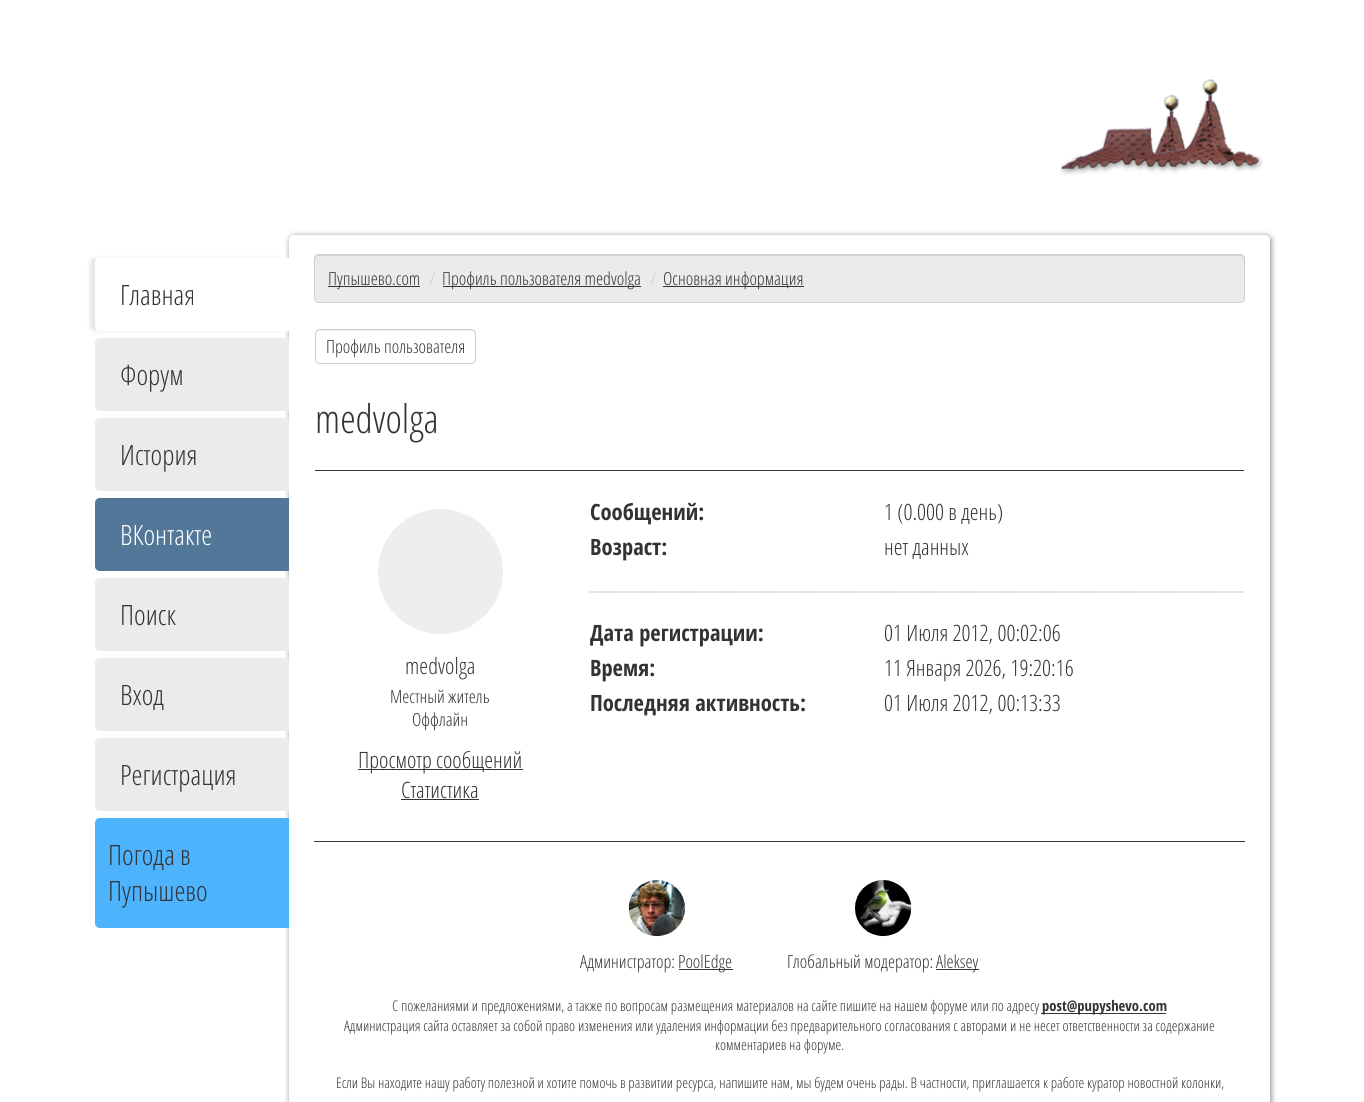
#include <cairo.h>
#include <math.h>
#include <stddef.h>


static void rgb(cairo_t *cr, int r, int g, int b)
{
	cairo_set_source_rgb(cr, r / 255.0, g / 255.0, b / 255.0);
}

static void face(cairo_t *cr, const char *family, double size, int italic, int bold)
{
	cairo_select_font_face(cr, family, italic ? CAIRO_FONT_SLANT_ITALIC : CAIRO_FONT_SLANT_NORMAL,
		bold ? CAIRO_FONT_WEIGHT_BOLD : CAIRO_FONT_WEIGHT_NORMAL);
	cairo_set_font_size(cr, size);
}

static void label(cairo_t *cr, double x, double y, const char *s)
{
	cairo_move_to(cr, x, y);
	cairo_show_text(cr, s);
}

static void rect(cairo_t *cr, double x, double y, double w, double h)
{
	cairo_rectangle(cr, x, y, w, h);
	cairo_fill(cr);
}

static void rrect(cairo_t *cr, double x, double y, double w, double h, double r)
{
	cairo_new_sub_path(cr);
	cairo_arc(cr, x + w - r, y + h - r, r, 0, M_PI / 2);
	cairo_arc(cr, x + r, y + h - r, r, M_PI / 2, M_PI);
	cairo_arc(cr, x + r, y + r, r, M_PI, 1.5 * M_PI);
	cairo_arc(cr, x + w - r, y + r, r, 1.5 * M_PI, 2 * M_PI);
	cairo_close_path(cr);
}

static void soft_shadow(cairo_t *cr, double x, double y, double w, double h, double r, double blur, double alpha)
{
	cairo_push_group_with_content(cr, CAIRO_CONTENT_ALPHA);
	cairo_set_operator(cr, CAIRO_OPERATOR_SOURCE);
	for (int i = 15; i >= -15 && fmin(w, h) + blur * i / 3 > 0; i -= 2) {
		double e = blur * i / 6;
		cairo_set_source_rgba(cr, 0, 0, 0, alpha * erfc((i - 1) / 8.5) / 2);
		rrect(cr, x - e, y - e, w + 2 * e, h + 2 * e, fmax(0, fmin(r + e + blur * .6, fmin(w, h) / 2 + e)));
		cairo_fill(cr);
	}
	cairo_pattern_t *soft = cairo_pop_group(cr);
	cairo_mask(cr, soft);
	cairo_pattern_destroy(soft);
}

static void image(cairo_t *cr, const char *path, double x, double y, double w, double h)
{
	cairo_surface_t *image = cairo_image_surface_create_from_png(path);
	cairo_save(cr);
	cairo_set_source_surface(cr, image, x, y);
	cairo_rectangle(cr, x, y, w, h);
	cairo_fill(cr);
	cairo_restore(cr);
	cairo_surface_destroy(image);
}

static void draw(cairo_t *cr) {
	rgb(cr, 255, 255, 255);
	cairo_paint(cr);
	image(cr, "image0.png", 1060, 79, 203, 96);
	rgb(cr, 0, 0, 0);
	soft_shadow(cr, 290, 236, 981, 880, 5, 3, 0.5);
	rgb(cr, 255, 255, 255);
	rrect(cr, 289, 235, 981, 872, 5);
	cairo_fill(cr);
	rgb(cr, 0, 0, 0);
	soft_shadow(cr, 90, 258, 194, 73, 5, 2, 0.1);
	rgb(cr, 255, 255, 255);
	cairo_new_path(cr);
	cairo_move_to(cr, 100, 258);
	cairo_line_to(cr, 289, 258);
	cairo_line_to(cr, 289, 331);
	cairo_line_to(cr, 100, 331);
	cairo_curve_to(cr, 97, 331, 95, 329, 95, 326);
	cairo_line_to(cr, 95, 263);
	cairo_curve_to(cr, 95, 260, 97, 258, 100, 258);
	cairo_close_path(cr);
	cairo_fill(cr);
	face(cr, "Open Sans Light", 28, 0, 0);
	rgb(cr, 51, 51, 51);
	label(cr, 120, 305, "Главная");
	rgb(cr, 235, 235, 235);
	cairo_new_path(cr);
	cairo_move_to(cr, 100, 338);
	cairo_line_to(cr, 289, 338);
	cairo_line_to(cr, 289, 411);
	cairo_line_to(cr, 100, 411);
	cairo_curve_to(cr, 97, 411, 95, 409, 95, 406);
	cairo_line_to(cr, 95, 343);
	cairo_curve_to(cr, 95, 340, 97, 338, 100, 338);
	cairo_close_path(cr);
	cairo_fill(cr);
	rgb(cr, 51, 51, 51);
	label(cr, 120, 385, "Форум");
	rgb(cr, 235, 235, 235);
	cairo_new_path(cr);
	cairo_move_to(cr, 100, 418);
	cairo_line_to(cr, 289, 418);
	cairo_line_to(cr, 289, 491);
	cairo_line_to(cr, 100, 491);
	cairo_curve_to(cr, 97, 491, 95, 489, 95, 486);
	cairo_line_to(cr, 95, 423);
	cairo_curve_to(cr, 95, 420, 97, 418, 100, 418);
	cairo_close_path(cr);
	cairo_fill(cr);
	rgb(cr, 51, 51, 51);
	label(cr, 120, 465, "История");
	rgb(cr, 83, 119, 152);
	cairo_new_path(cr);
	cairo_move_to(cr, 100, 498);
	cairo_line_to(cr, 289, 498);
	cairo_line_to(cr, 289, 571);
	cairo_line_to(cr, 100, 571);
	cairo_curve_to(cr, 97, 571, 95, 569, 95, 566);
	cairo_line_to(cr, 95, 503);
	cairo_curve_to(cr, 95, 500, 97, 498, 100, 498);
	cairo_close_path(cr);
	cairo_fill(cr);
	rgb(cr, 255, 255, 255);
	label(cr, 120, 545, "ВКонтакте");
	rgb(cr, 235, 235, 235);
	cairo_new_path(cr);
	cairo_move_to(cr, 100, 578);
	cairo_line_to(cr, 289, 578);
	cairo_line_to(cr, 289, 651);
	cairo_line_to(cr, 100, 651);
	cairo_curve_to(cr, 97, 651, 95, 649, 95, 646);
	cairo_line_to(cr, 95, 583);
	cairo_curve_to(cr, 95, 580, 97, 578, 100, 578);
	cairo_close_path(cr);
	cairo_fill(cr);
	rgb(cr, 51, 51, 51);
	label(cr, 120, 625, "Поиск");
	rgb(cr, 235, 235, 235);
	cairo_new_path(cr);
	cairo_move_to(cr, 100, 658);
	cairo_line_to(cr, 289, 658);
	cairo_line_to(cr, 289, 731);
	cairo_line_to(cr, 100, 731);
	cairo_curve_to(cr, 97, 731, 95, 729, 95, 726);
	cairo_line_to(cr, 95, 663);
	cairo_curve_to(cr, 95, 660, 97, 658, 100, 658);
	cairo_close_path(cr);
	cairo_fill(cr);
	rgb(cr, 51, 51, 51);
	label(cr, 120, 705, "Вход");
	rgb(cr, 235, 235, 235);
	cairo_new_path(cr);
	cairo_move_to(cr, 100, 738);
	cairo_line_to(cr, 289, 738);
	cairo_line_to(cr, 289, 811);
	cairo_line_to(cr, 100, 811);
	cairo_curve_to(cr, 97, 811, 95, 809, 95, 806);
	cairo_line_to(cr, 95, 743);
	cairo_curve_to(cr, 95, 740, 97, 738, 100, 738);
	cairo_close_path(cr);
	cairo_fill(cr);
	rgb(cr, 51, 51, 51);
	label(cr, 120, 785, "Регистрация");
	rgb(cr, 77, 179, 252);
	cairo_new_path(cr);
	cairo_move_to(cr, 100, 818);
	cairo_line_to(cr, 289, 818);
	cairo_line_to(cr, 289, 928);
	cairo_line_to(cr, 100, 928);
	cairo_curve_to(cr, 97, 928, 95, 926, 95, 923);
	cairo_line_to(cr, 95, 823);
	cairo_curve_to(cr, 95, 820, 97, 818, 100, 818);
	cairo_close_path(cr);
	cairo_fill(cr);
	rgb(cr, 51, 51, 51);
	label(cr, 108, 865, "Погода в");
	label(cr, 108, 901, "Пупышево");
	rgb(cr, 235, 235, 235);
	rrect(cr, 314, 254, 931, 49, 5);
	cairo_fill(cr);
	rgb(cr, 212, 212, 212);
	cairo_new_path(cr);
	cairo_move_to(cr, 319, 256);
	cairo_line_to(cr, 1240, 256);
	cairo_curve_to(cr, 1242, 256, 1244, 258, 1244, 260);
	cairo_curve_to(cr, 1244, 257, 1243, 255, 1240, 255);
	cairo_line_to(cr, 319, 255);
	cairo_curve_to(cr, 316, 255, 315, 257, 315, 260);
	cairo_curve_to(cr, 315, 258, 317, 256, 319, 256);
	cairo_close_path(cr);
	cairo_fill(cr);
	rrect(cr, 314.5, 254.5, 930, 48, 4.5);
	rgb(cr, 206, 206, 206);
	cairo_set_line_width(cr, 1);
	cairo_stroke(cr);
	rgb(cr, 51, 51, 51);
	rect(cr, 328, 286, 92, 1);
	face(cr, "Open Sans Light", 18, 0, 0);
	label(cr, 328, 285, "Пупышево.com");
	rgb(cr, 204, 204, 204);
	label(cr, 429, 285, "/");
	rgb(cr, 51, 51, 51);
	rect(cr, 443, 286, 198, 1);
	label(cr, 442, 285, "Профиль пользователя medvolga");
	rgb(cr, 204, 204, 204);
	label(cr, 650, 285, "/");
	rgb(cr, 51, 51, 51);
	rect(cr, 663, 286, 141, 1);
	label(cr, 663, 285, "Основная информация");
	rgb(cr, 236, 236, 236);
	cairo_new_path(cr);
	cairo_move_to(cr, 320, 331);
	cairo_line_to(cr, 472, 331);
	cairo_curve_to(cr, 474, 331, 475, 333, 475, 334);
	cairo_curve_to(cr, 475, 332, 474, 330, 472, 330);
	cairo_line_to(cr, 318, 330);
	cairo_curve_to(cr, 316, 330, 316, 332, 316, 334);
	cairo_curve_to(cr, 316, 333, 318, 331, 320, 331);
	cairo_close_path(cr);
	cairo_fill(cr);
	rrect(cr, 315.5, 329.5, 160, 34, 4.5);
	rgb(cr, 204, 204, 204);
	cairo_stroke(cr);
	rgb(cr, 51, 51, 51);
	label(cr, 326, 353, "Профиль пользователя");
	rect(cr, 315, 470, 929, 1);
	face(cr, "Open Sans Light", 39.5, 0, 0);
	label(cr, 315, 433, "medvolga");
	rgb(cr, 238, 238, 238);
	cairo_new_path(cr);
	cairo_arc(cr, 440.5, 571.5, 62.5, 0, 2 * M_PI);
	cairo_fill(cr);
	face(cr, "Open Sans Light", 22.5, 0, 0);
	rgb(cr, 51, 51, 51);
	label(cr, 405, 674, "medvolga");
	face(cr, "Open Sans Light", 18, 0, 0);
	label(cr, 390, 703, "Местный житель");
	label(cr, 412, 726, "Оффлайн");
	rect(cr, 358, 769, 165, 1);
	face(cr, "Open Sans Light", 22.5, 0, 0);
	label(cr, 358, 768, "Просмотр сообщений");
	label(cr, 401, 798, "Статистика");
	rect(cr, 401, 799, 78, 1);
	face(cr, "Open Sans Condensed", 22.5, 0, 1);
	label(cr, 590, 520, "Сообщений:");
	face(cr, "Open Sans Light", 22.5, 0, 0);
	label(cr, 884, 520, "1 (0.000 в день)");
	face(cr, "Open Sans Condensed", 22.5, 0, 1);
	label(cr, 590, 555, "Возраст:");
	face(cr, "Open Sans Light", 22.5, 0, 0);
	label(cr, 884, 555, "нет данных");
	cairo_new_path(cr);
	cairo_move_to(cr, 590, 592);
	cairo_line_to(cr, 1244, 592);
	rgb(cr, 170, 170, 170);
	cairo_set_line_width(cr, 1.2);
	cairo_set_dash(cr, (double[]){1.25, 1.25}, 2, 0);
	cairo_stroke(cr);
	face(cr, "Open Sans Condensed", 22.5, 0, 1);
	rgb(cr, 51, 51, 51);
	label(cr, 590, 641, "Дата регистрации:");
	face(cr, "Open Sans Light", 22.5, 0, 0);
	label(cr, 884, 641, "01 Июля 2012, 00:02:06");
	face(cr, "Open Sans Condensed", 22.5, 0, 1);
	label(cr, 590, 676, "Время:");
	face(cr, "Open Sans Light", 22.5, 0, 0);
	label(cr, 884, 676, "11 Января 2026, 19:20:16");
	face(cr, "Open Sans Condensed", 22.5, 0, 1);
	label(cr, 590, 711, "Последняя активность:");
	face(cr, "Open Sans Light", 22.5, 0, 0);
	label(cr, 884, 711, "01 Июля 2012, 00:13:33");
	rect(cr, 314, 841, 931, 1);
	rgb(cr, 238, 238, 238);
	cairo_new_path(cr);
	cairo_arc(cr, 657, 908, 28, 0, 2 * M_PI);
	cairo_fill(cr);
	image(cr, "image1.png", 628, 880, 57, 57);
	face(cr, "Open Sans Light", 18, 0, 0);
	rgb(cr, 51, 51, 51);
	label(cr, 580, 968, "Администратор:");
	rect(cr, 679, 969, 54, 1);
	label(cr, 678, 968, "PoolEdge");
	rgb(cr, 238, 238, 238);
	cairo_new_path(cr);
	cairo_arc(cr, 883, 908, 28, 0, 2 * M_PI);
	cairo_fill(cr);
	image(cr, "image2.png", 855, 880, 57, 57);
	rgb(cr, 51, 51, 51);
	label(cr, 787, 968, "Глобальный модератор:");
	rect(cr, 936, 969, 43, 1);
	label(cr, 936, 968, "Aleksey");
	face(cr, "Open Sans Light", 14.62, 0, 0);
	label(cr, 392, 1011, "C пожеланиями и предложениями, а также по вопросам размещения материалов на сайте пишите на нашем форуме или по адресу");
	rect(cr, 1041, 1013, 125, 1);
	face(cr, "Open Sans Condensed", 14.62, 0, 1);
	label(cr, 1042, 1011, "post@pupyshevo.com");
	face(cr, "Open Sans Light", 14.62, 0, 0);
	label(cr, 344, 1031, "Администрация сайта оставляет за собой право изменения или удаления информации без предварительного согласования с авторами и не несет ответственности за содержание");
	label(cr, 715, 1050, "комментариев на форуме.");
	label(cr, 336, 1088, "Если Вы находите нашу работу полезной и хотите помочь в развитии ресурса, напишите нам, мы будем очень рады. В частности, приглашается к работе куратор новостной колонки,");
}

int main(void) {
	cairo_surface_t *surface = cairo_image_surface_create(CAIRO_FORMAT_RGB24, 1364, 1102);
	cairo_t *cr = cairo_create(surface);
	cairo_font_options_t *options = cairo_font_options_create();
	cairo_font_options_set_hint_metrics(options, CAIRO_HINT_METRICS_OFF);
	cairo_font_options_set_hint_style(options, CAIRO_HINT_STYLE_NONE);
	cairo_set_font_options(cr, options);
	cairo_set_miter_limit(cr, 4);
	draw(cr);
	cairo_surface_write_to_png(surface, "render.png");
	cairo_font_options_destroy(options);
	cairo_destroy(cr);
	cairo_surface_destroy(surface);
	return 0;
}
